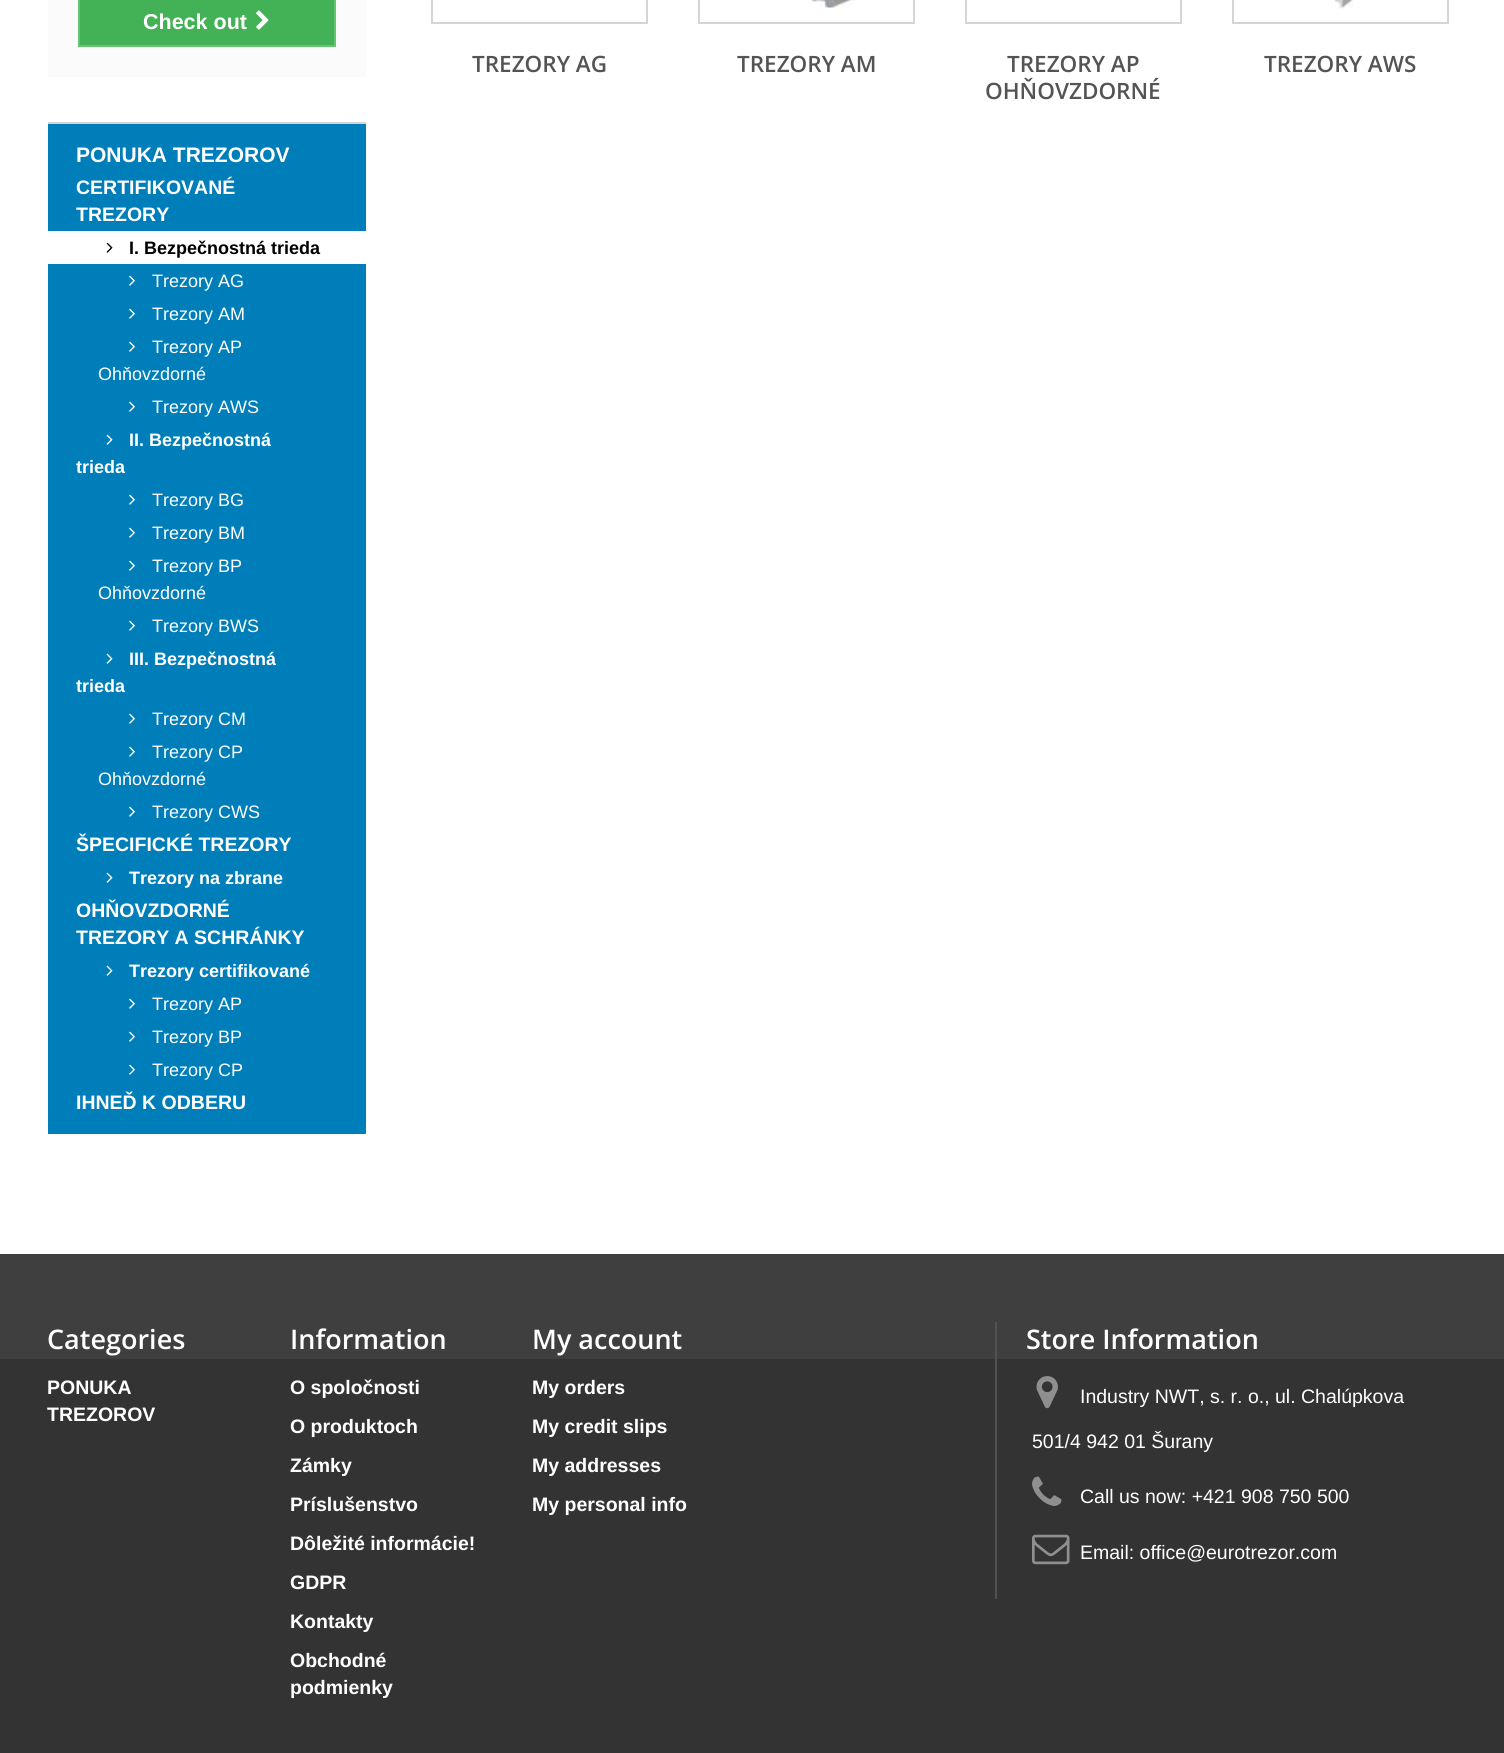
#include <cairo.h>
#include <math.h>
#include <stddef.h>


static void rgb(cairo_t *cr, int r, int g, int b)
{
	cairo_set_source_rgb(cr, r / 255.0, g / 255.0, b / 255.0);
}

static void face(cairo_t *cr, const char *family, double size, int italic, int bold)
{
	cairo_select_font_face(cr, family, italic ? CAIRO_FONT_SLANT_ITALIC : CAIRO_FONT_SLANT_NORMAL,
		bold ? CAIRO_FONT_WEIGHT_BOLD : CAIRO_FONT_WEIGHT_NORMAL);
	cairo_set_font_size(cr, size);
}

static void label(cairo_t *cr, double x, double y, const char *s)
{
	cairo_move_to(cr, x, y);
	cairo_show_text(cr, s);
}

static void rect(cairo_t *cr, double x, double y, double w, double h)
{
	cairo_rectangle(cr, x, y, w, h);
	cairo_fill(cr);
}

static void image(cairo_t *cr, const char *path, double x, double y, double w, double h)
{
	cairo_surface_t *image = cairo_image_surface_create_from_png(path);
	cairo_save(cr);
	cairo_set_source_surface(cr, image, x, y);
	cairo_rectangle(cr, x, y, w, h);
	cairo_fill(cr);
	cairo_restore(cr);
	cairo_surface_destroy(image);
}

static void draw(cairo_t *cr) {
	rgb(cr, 255, 255, 255);
	cairo_paint(cr);
	rgb(cr, 251, 251, 251);
	rect(cr, 48, 0, 318, 77);
	rgb(cr, 67, 177, 85);
	cairo_rectangle(cr, 79, -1, 256, 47);
	cairo_fill_preserve(cr);
	rgb(cr, 99, 196, 115);
	cairo_stroke(cr);
	face(cr, "Liberation Sans", 21.5, 0, 1);
	rgb(cr, 255, 255, 255);
	label(cr, 143, 29, "Check out");
	image(cr, "image0.png", 256, 10, 13, 20);
	rgb(cr, 0, 126, 185);
	rect(cr, 48, 124, 318, 1010);
	rgb(cr, 214, 212, 212);
	rect(cr, 48, 122, 318, 2);
	face(cr, "Liberation Sans", 21, 0, 1);
	rgb(cr, 255, 255, 255);
	label(cr, 76, 162, "PONUKA TREZOROV");
	face(cr, "Liberation Sans", 19.5, 0, 1);
	label(cr, 76, 194, "CERTIFIKOVANÉ");
	label(cr, 76, 221, "TREZORY");
	rect(cr, 48, 231, 318, 33);
	image(cr, "image1.png", 106, 242, 7, 11);
	face(cr, "Liberation Sans", 18, 0, 1);
	rgb(cr, 0, 0, 0);
	label(cr, 129, 254, "I. Bezpečnostná trieda");
	image(cr, "image2.png", 129, 275, 6, 11);
	face(cr, "Liberation Sans", 18, 0, 0);
	rgb(cr, 255, 255, 255);
	label(cr, 152, 287, "Trezory AG");
	image(cr, "image2.png", 129, 308, 6, 11);
	label(cr, 152, 320, "Trezory AM");
	image(cr, "image2.png", 129, 341, 6, 11);
	label(cr, 152, 353, "Trezory AP");
	label(cr, 98, 380, "Ohňovzdorné");
	image(cr, "image2.png", 129, 401, 6, 11);
	label(cr, 152, 413, "Trezory AWS");
	image(cr, "image3.png", 106, 434, 7, 11);
	face(cr, "Liberation Sans", 18, 0, 1);
	label(cr, 129, 446, "II. Bezpečnostná");
	label(cr, 76, 473, "trieda");
	image(cr, "image2.png", 129, 494, 6, 11);
	face(cr, "Liberation Sans", 18, 0, 0);
	label(cr, 152, 506, "Trezory BG");
	image(cr, "image2.png", 129, 527, 6, 11);
	label(cr, 152, 539, "Trezory BM");
	image(cr, "image2.png", 129, 560, 6, 11);
	label(cr, 152, 572, "Trezory BP");
	label(cr, 98, 599, "Ohňovzdorné");
	image(cr, "image2.png", 129, 620, 6, 11);
	label(cr, 152, 632, "Trezory BWS");
	image(cr, "image3.png", 106, 653, 7, 11);
	face(cr, "Liberation Sans", 18, 0, 1);
	label(cr, 129, 665, "III. Bezpečnostná");
	label(cr, 76, 692, "trieda");
	image(cr, "image2.png", 129, 713, 6, 11);
	face(cr, "Liberation Sans", 18, 0, 0);
	label(cr, 152, 725, "Trezory CM");
	image(cr, "image2.png", 129, 746, 6, 11);
	label(cr, 152, 758, "Trezory CP");
	label(cr, 98, 785, "Ohňovzdorné");
	image(cr, "image2.png", 129, 806, 6, 11);
	label(cr, 152, 818, "Trezory CWS");
	face(cr, "Liberation Sans", 19.5, 0, 1);
	label(cr, 76, 851, "ŠPECIFICKÉ TREZORY");
	image(cr, "image3.png", 106, 872, 7, 11);
	face(cr, "Liberation Sans", 18, 0, 1);
	label(cr, 129, 884, "Trezory na zbrane");
	face(cr, "Liberation Sans", 19.5, 0, 1);
	label(cr, 76, 917, "OHŇOVZDORNÉ");
	label(cr, 76, 944, "TREZORY A SCHRÁNKY");
	image(cr, "image3.png", 106, 965, 7, 11);
	face(cr, "Liberation Sans", 18, 0, 1);
	label(cr, 129, 977, "Trezory certifikované");
	image(cr, "image2.png", 129, 998, 6, 11);
	face(cr, "Liberation Sans", 18, 0, 0);
	label(cr, 152, 1010, "Trezory AP");
	image(cr, "image2.png", 129, 1031, 6, 11);
	label(cr, 152, 1043, "Trezory BP");
	image(cr, "image2.png", 129, 1064, 6, 11);
	label(cr, 152, 1076, "Trezory CP");
	face(cr, "Liberation Sans", 19.5, 0, 1);
	label(cr, 76, 1109, "IHNEĎ K ODBERU");
	cairo_rectangle(cr, 432, -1, 215, 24);
	rgb(cr, 214, 212, 212);
	cairo_stroke(cr);
	face(cr, "Open Sans SemiBold", 22.5, 0, 0);
	rgb(cr, 85, 84, 84);
	label(cr, 472, 72, "TREZORY AG");
	cairo_rectangle(cr, 699, -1, 215, 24);
	rgb(cr, 214, 212, 212);
	cairo_stroke(cr);
	image(cr, "image4.png", 811, 0, 44, 9);
	rgb(cr, 85, 84, 84);
	label(cr, 737, 72, "TREZORY AM");
	cairo_rectangle(cr, 966, -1, 215, 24);
	rgb(cr, 214, 212, 212);
	cairo_stroke(cr);
	rgb(cr, 85, 84, 84);
	label(cr, 1007, 72, "TREZORY AP");
	label(cr, 985, 99, "OHŇOVZDORNÉ");
	cairo_rectangle(cr, 1233, -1, 215, 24);
	rgb(cr, 214, 212, 212);
	cairo_stroke(cr);
	image(cr, "image5.png", 1331, 0, 23, 9);
	rgb(cr, 85, 84, 84);
	label(cr, 1264, 72, "TREZORY AWS");
	rgb(cr, 51, 51, 51);
	rect(cr, 0, 1359, 1504, 394);
	rgb(cr, 63, 63, 63);
	rect(cr, 0, 1254, 1504, 105);
	face(cr, "Open Sans SemiBold", 27, 0, 0);
	rgb(cr, 255, 255, 255);
	label(cr, 47, 1349, "Categories");
	face(cr, "Liberation Sans", 19.5, 0, 1);
	label(cr, 47, 1394, "PONUKA");
	label(cr, 47, 1421, "TREZOROV");
	face(cr, "Open Sans SemiBold", 27, 0, 0);
	label(cr, 290, 1349, "Information");
	face(cr, "Liberation Sans", 19.5, 0, 1);
	label(cr, 290, 1394, "O spoločnosti");
	label(cr, 290, 1433, "O produktoch");
	label(cr, 290, 1472, "Zámky");
	label(cr, 290, 1511, "Príslušenstvo");
	label(cr, 290, 1550, "Dôležité informácie!");
	label(cr, 290, 1589, "GDPR");
	label(cr, 290, 1628, "Kontakty");
	label(cr, 290, 1667, "Obchodné");
	label(cr, 290, 1694, "podmienky");
	face(cr, "Open Sans SemiBold", 27, 0, 0);
	label(cr, 532, 1349, "My account");
	face(cr, "Liberation Sans", 19.5, 0, 1);
	label(cr, 532, 1394, "My orders");
	label(cr, 532, 1433, "My credit slips");
	label(cr, 532, 1472, "My addresses");
	label(cr, 532, 1511, "My personal info");
	rgb(cr, 81, 81, 81);
	rect(cr, 995, 1322, 2, 277);
	face(cr, "Open Sans SemiBold", 27, 0, 0);
	rgb(cr, 255, 255, 255);
	label(cr, 1026, 1349, "Store Information");
	image(cr, "image6.png", 1036, 1376, 22, 33);
	face(cr, "Liberation Sans", 19.5, 0, 0);
	label(cr, 1080, 1403, "Industry NWT, s. r. o., ul. Chalúpkova");
	label(cr, 1032, 1448, "501/4 942 01 Šurany");
	image(cr, "image7.png", 1032, 1476, 30, 30);
	label(cr, 1080, 1503, "Call us now: +421 908 750 500");
	image(cr, "image8.png", 1032, 1534, 38, 31);
	label(cr, 1080, 1559, "Email: office@eurotrezor.com");
}

int main(void) {
	cairo_surface_t *surface = cairo_image_surface_create(CAIRO_FORMAT_RGB24, 1504, 1753);
	cairo_t *cr = cairo_create(surface);
	cairo_font_options_t *options = cairo_font_options_create();
	cairo_font_options_set_hint_metrics(options, CAIRO_HINT_METRICS_OFF);
	cairo_font_options_set_hint_style(options, CAIRO_HINT_STYLE_NONE);
	cairo_set_font_options(cr, options);
	cairo_set_miter_limit(cr, 4);
	draw(cr);
	cairo_surface_write_to_png(surface, "render.png");
	cairo_font_options_destroy(options);
	cairo_destroy(cr);
	cairo_surface_destroy(surface);
	return 0;
}
